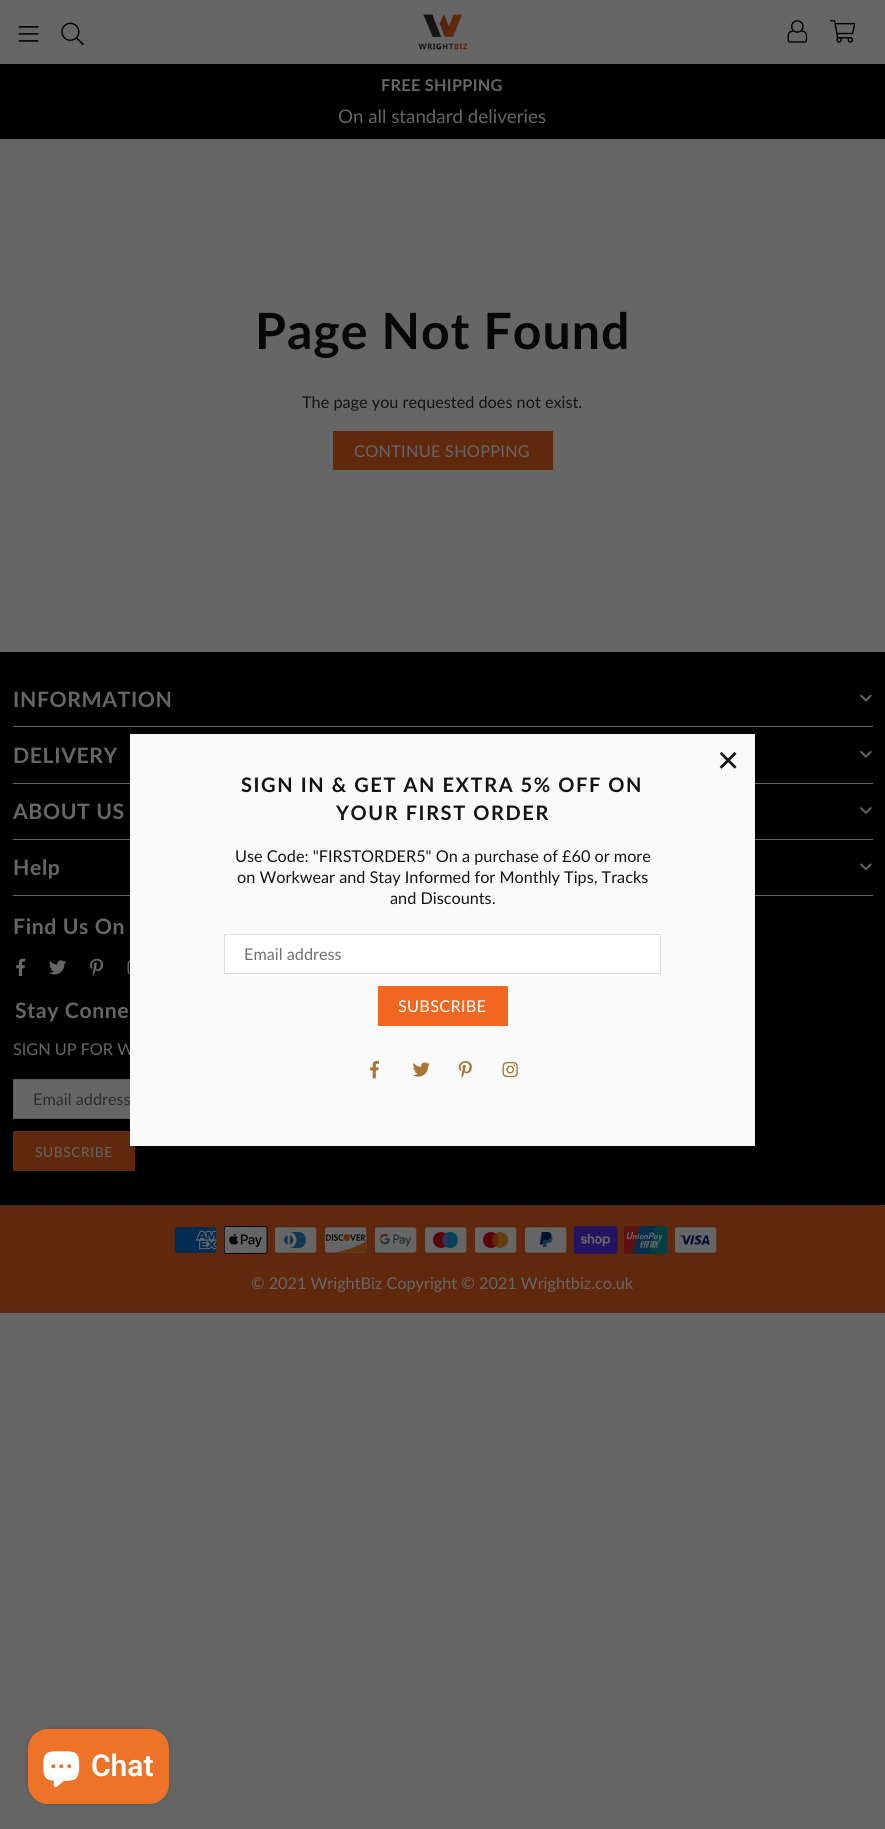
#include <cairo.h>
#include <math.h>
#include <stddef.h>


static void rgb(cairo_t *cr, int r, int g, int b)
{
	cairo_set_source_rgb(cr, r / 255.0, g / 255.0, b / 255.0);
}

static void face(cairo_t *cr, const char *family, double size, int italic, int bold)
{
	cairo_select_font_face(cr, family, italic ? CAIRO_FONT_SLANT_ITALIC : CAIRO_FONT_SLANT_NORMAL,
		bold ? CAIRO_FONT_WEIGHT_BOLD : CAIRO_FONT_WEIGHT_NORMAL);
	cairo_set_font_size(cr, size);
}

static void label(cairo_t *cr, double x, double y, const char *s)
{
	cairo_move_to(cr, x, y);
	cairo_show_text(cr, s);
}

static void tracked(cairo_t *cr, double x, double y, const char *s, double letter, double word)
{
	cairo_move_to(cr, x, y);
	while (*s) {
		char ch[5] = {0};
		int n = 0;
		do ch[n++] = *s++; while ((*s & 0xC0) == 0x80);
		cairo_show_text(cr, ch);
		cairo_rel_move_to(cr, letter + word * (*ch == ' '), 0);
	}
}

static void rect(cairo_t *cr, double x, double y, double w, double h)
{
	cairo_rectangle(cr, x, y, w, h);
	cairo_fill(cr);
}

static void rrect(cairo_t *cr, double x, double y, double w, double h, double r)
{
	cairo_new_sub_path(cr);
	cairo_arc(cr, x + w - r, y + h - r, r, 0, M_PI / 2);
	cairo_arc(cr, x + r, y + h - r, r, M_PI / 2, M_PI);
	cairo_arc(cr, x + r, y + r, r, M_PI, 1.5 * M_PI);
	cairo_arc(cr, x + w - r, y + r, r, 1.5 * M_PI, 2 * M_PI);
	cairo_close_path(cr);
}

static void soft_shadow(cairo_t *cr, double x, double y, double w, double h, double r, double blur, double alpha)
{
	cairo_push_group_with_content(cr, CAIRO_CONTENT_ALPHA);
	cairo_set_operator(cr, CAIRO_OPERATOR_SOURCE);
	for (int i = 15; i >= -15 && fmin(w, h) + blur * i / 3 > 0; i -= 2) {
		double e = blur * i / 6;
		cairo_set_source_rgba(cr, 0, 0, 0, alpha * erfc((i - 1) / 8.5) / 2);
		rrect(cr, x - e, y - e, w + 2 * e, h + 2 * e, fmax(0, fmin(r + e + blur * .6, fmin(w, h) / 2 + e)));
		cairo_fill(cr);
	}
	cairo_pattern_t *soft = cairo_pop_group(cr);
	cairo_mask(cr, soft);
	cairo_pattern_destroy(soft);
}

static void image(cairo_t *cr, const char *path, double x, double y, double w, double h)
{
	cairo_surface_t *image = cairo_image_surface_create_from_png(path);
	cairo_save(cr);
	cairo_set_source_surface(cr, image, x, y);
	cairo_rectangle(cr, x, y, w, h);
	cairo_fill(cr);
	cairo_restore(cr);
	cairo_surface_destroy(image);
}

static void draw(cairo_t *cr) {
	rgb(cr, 102, 102, 102);
	cairo_paint(cr);
	image(cr, "image0.png", 18, 26, 21, 16);
	image(cr, "image1.png", 61, 22, 23, 24);
	image(cr, "image2.png", 418, 14, 50, 36);
	image(cr, "image3.png", 787, 20, 21, 23);
	image(cr, "image4.png", 830, 20, 26, 23);
	rgb(cr, 0, 0, 0);
	rect(cr, 0, 64, 885, 75);
	face(cr, "Lato", 16.25, 0, 1);
	rgb(cr, 102, 102, 102);
	tracked(cr, 381, 91, "FREE SHIPPING", 0.3, 0);
	face(cr, "Lato", 18.75, 0, 0);
	label(cr, 338, 123, "On all standard deliveries");
	face(cr, "Lato", 50, 0, 1);
	rgb(cr, 7, 7, 7);
	tracked(cr, 255, 349, "Page Not Found", 1, 0);
	face(cr, "Lato", 16.25, 0, 0);
	rgb(cr, 20, 20, 20);
	label(cr, 302, 408, "The page you requested does not exist.");
	rgb(cr, 96, 41, 14);
	rect(cr, 333, 431, 220, 39);
	rgb(cr, 102, 102, 102);
	tracked(cr, 354, 457, "CONTINUE SHOPPING", 0.3, 0);
	rgb(cr, 0, 0, 0);
	rect(cr, 0, 652, 885, 553);
	face(cr, "Lato", 21.25, 0, 1);
	rgb(cr, 102, 102, 102);
	tracked(cr, 13, 707, "INFORMATION", 0.6, 0);
	image(cr, "image5.png", 860, 694, 12, 8);
	rect(cr, 13, 726, 860, 1);
	tracked(cr, 13, 763, "DELIVERY", 0.6, 0);
	image(cr, "image6.png", 860, 750, 12, 8);
	rect(cr, 13, 783, 860, 1);
	tracked(cr, 13, 819, "ABOUT US", 0.6, 0);
	image(cr, "image7.png", 860, 807, 12, 7);
	rect(cr, 13, 839, 860, 1);
	tracked(cr, 13, 875, "Help", 0.6, 0);
	image(cr, "image8.png", 860, 863, 12, 8);
	rect(cr, 13, 895, 860, 1);
	tracked(cr, 13, 934, "Find Us On", 0.6, 0);
	image(cr, "image9.png", 16, 958, 10, 19);
	image(cr, "image10.png", 49, 960, 17, 15);
	image(cr, "image11.png", 90, 958, 14, 18);
	image(cr, "image12.png", 127, 960, 3, 15);
	tracked(cr, 15, 1018, "Stay Conne", 0.6, 0);
	face(cr, "Lato", 16.25, 0, 0);
	label(cr, 13, 1055, "SIGN UP FOR W");
	rect(cr, 14, 1080, 116, 38);
	cairo_rectangle(cr, 13.5, 1079.5, 536, 39);
	rgb(cr, 88, 88, 88);
	cairo_set_line_width(cr, 1);
	cairo_stroke(cr);
	rgb(cr, 45, 45, 45);
	label(cr, 33, 1105, "Email address");
	rgb(cr, 96, 41, 14);
	rect(cr, 13, 1131, 122, 40);
	face(cr, "Lato", 13.75, 0, 0);
	rgb(cr, 102, 102, 102);
	tracked(cr, 35, 1157, "SUBSCRIBE", 0.6, 0);
	rgb(cr, 96, 41, 14);
	rect(cr, 0, 1205, 885, 108);
	cairo_new_path(cr);
	cairo_move_to(cr, 0, 1205.5);
	cairo_line_to(cr, 885, 1205.5);
	rgb(cr, 48, 48, 48);
	cairo_set_line_width(cr, 1.2);
	cairo_set_dash(cr, (double[]){1.25, 1.25}, 2, 0);
	cairo_stroke(cr);
	image(cr, "image13.png", 174, 1226, 44, 28);
	image(cr, "image14.png", 224, 1226, 44, 28);
	image(cr, "image15.png", 274, 1226, 44, 28);
	image(cr, "image16.png", 324, 1226, 44, 28);
	image(cr, "image17.png", 374, 1226, 44, 28);
	image(cr, "image18.png", 424, 1226, 44, 28);
	image(cr, "image19.png", 474, 1226, 44, 28);
	image(cr, "image20.png", 524, 1226, 44, 28);
	image(cr, "image21.png", 574, 1226, 44, 28);
	image(cr, "image22.png", 624, 1226, 44, 28);
	image(cr, "image23.png", 674, 1226, 44, 28);
	face(cr, "Lato", 16.25, 0, 0);
	rgb(cr, 102, 102, 102);
	label(cr, 251, 1289, "© 2021 WrightBiz Copyright © 2021 Wrightbiz.co.uk");
	rgb(cr, 250, 250, 250);
	rect(cr, 130, 734, 625, 412);
	face(cr, "Liberation Sans", 38, 0, 0);
	rgb(cr, 20, 20, 20);
	label(cr, 717, 773, "×");
	face(cr, "Lato", 20, 0, 1);
	tracked(cr, 241, 792, "SIGN IN & GET AN EXTRA 5% OFF ON", 1.6, 0);
	tracked(cr, 336, 820, "YOUR FIRST ORDER", 1.6, 0);
	face(cr, "Lato", 16.25, 0, 0);
	label(cr, 235, 862, "Use Code: \"FIRSTORDER5\" On a purchase of £60 or more");
	label(cr, 237, 883, "on Workwear and Stay Informed for Monthly Tips, Tracks");
	label(cr, 390, 904, "and Discounts.");
	rgb(cr, 255, 255, 255);
	cairo_rectangle(cr, 224.5, 934.5, 436, 39);
	cairo_fill_preserve(cr);
	rgb(cr, 221, 221, 221);
	cairo_set_line_width(cr, 1);
	cairo_set_dash(cr, NULL, 0, 0);
	cairo_stroke(cr);
	rgb(cr, 112, 112, 112);
	label(cr, 244, 960, "Email address");
	rgb(cr, 241, 103, 34);
	rect(cr, 378, 986, 130, 40);
	rgb(cr, 255, 255, 255);
	tracked(cr, 398, 1012, "SUBSCRIBE", 0.3, 0);
	image(cr, "image24.png", 370, 1060, 10, 19);
	image(cr, "image25.png", 412, 1062, 18, 15);
	image(cr, "image26.png", 458, 1061, 14, 17);
	image(cr, "image27.png", 502, 1061, 16, 17);
	rgb(cr, 0, 0, 0);
	soft_shadow(cr, 28, 1729, 141, 75, 20, 3, 0.15);
	rgb(cr, 236, 115, 39);
	rrect(cr, 28, 1729, 141, 75, 20);
	cairo_fill(cr);
	image(cr, "image28.png", 43, 1751, 37, 37);
	face(cr, "Roboto SemiBold", 30, 0, 0);
	rgb(cr, 255, 255, 255);
	label(cr, 91, 1776, "Chat");
}

int main(void) {
	cairo_surface_t *surface = cairo_image_surface_create(CAIRO_FORMAT_RGB24, 885, 1829);
	cairo_t *cr = cairo_create(surface);
	cairo_font_options_t *options = cairo_font_options_create();
	cairo_font_options_set_hint_metrics(options, CAIRO_HINT_METRICS_OFF);
	cairo_font_options_set_hint_style(options, CAIRO_HINT_STYLE_NONE);
	cairo_set_font_options(cr, options);
	cairo_set_miter_limit(cr, 4);
	draw(cr);
	cairo_surface_write_to_png(surface, "render.png");
	cairo_font_options_destroy(options);
	cairo_destroy(cr);
	cairo_surface_destroy(surface);
	return 0;
}
